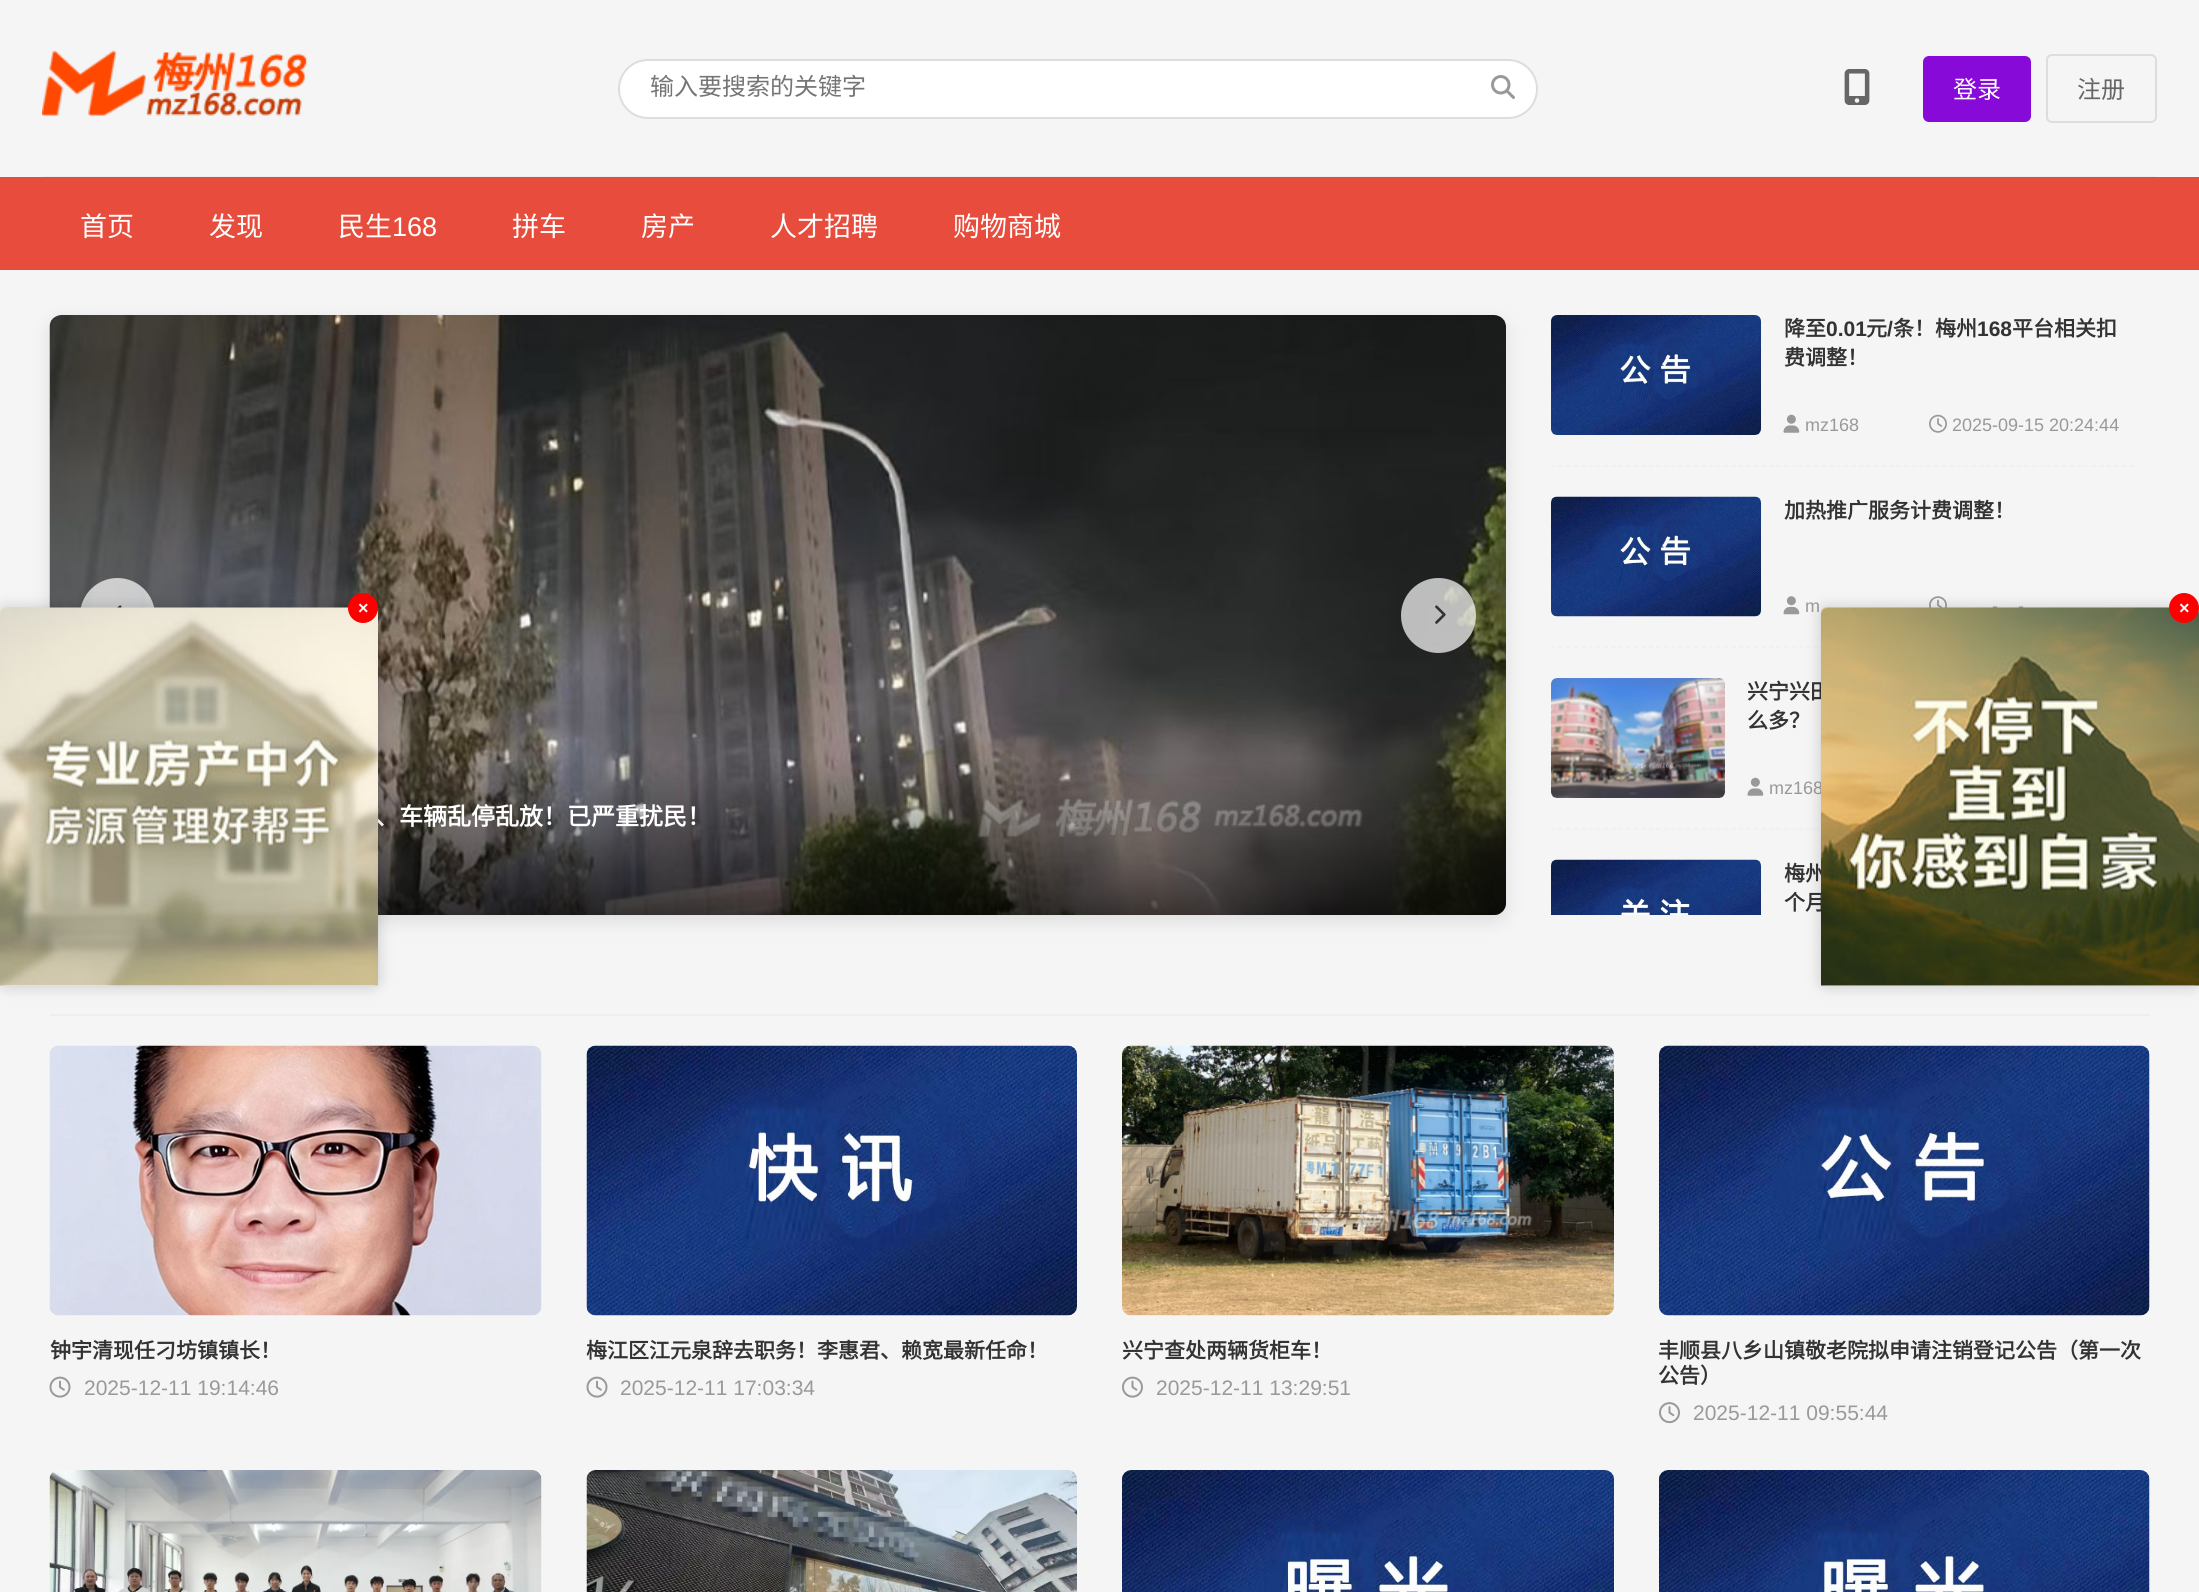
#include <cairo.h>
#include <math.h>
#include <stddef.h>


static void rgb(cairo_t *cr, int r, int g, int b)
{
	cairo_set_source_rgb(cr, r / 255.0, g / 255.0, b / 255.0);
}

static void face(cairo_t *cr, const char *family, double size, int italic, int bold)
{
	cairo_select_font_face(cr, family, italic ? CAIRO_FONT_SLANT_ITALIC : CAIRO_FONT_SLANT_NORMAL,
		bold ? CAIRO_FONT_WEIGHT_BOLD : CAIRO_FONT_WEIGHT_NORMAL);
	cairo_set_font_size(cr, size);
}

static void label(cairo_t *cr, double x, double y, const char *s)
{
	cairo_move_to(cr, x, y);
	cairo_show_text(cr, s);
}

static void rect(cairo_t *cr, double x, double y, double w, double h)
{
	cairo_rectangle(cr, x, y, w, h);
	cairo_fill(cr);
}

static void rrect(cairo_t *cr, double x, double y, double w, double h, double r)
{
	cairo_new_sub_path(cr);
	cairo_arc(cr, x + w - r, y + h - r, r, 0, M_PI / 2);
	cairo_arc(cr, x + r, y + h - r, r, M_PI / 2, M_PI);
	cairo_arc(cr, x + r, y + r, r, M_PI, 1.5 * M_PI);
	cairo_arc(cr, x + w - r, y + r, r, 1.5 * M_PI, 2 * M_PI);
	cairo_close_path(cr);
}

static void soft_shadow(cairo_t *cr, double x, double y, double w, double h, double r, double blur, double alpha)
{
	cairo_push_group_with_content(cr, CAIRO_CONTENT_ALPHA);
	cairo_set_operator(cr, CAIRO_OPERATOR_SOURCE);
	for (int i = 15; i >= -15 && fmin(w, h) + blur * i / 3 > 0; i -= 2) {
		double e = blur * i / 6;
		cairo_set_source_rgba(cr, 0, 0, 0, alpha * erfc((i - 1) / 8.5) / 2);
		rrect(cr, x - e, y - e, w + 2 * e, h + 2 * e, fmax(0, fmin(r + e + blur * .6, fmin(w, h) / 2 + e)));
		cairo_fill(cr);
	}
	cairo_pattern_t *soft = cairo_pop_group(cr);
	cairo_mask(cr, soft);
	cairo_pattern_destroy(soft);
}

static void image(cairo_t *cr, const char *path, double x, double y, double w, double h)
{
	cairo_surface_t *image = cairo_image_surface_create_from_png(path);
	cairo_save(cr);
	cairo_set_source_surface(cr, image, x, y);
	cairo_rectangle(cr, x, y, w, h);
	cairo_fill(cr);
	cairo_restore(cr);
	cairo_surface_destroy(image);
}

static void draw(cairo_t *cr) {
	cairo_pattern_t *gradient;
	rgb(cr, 245, 245, 245);
	cairo_paint(cr);
	rgb(cr, 238, 238, 238);
	rect(cr, 42, 176, 2115, 1);
	image(cr, "image0.png", 42, 50, 265, 66);
	rgb(cr, 255, 255, 255);
	rrect(cr, 619, 60, 918, 58, 29);
	cairo_fill_preserve(cr);
	rgb(cr, 221, 221, 221);
	cairo_stroke(cr);
	face(cr, "Noto Sans CJK SC", 24, 0, 0);
	rgb(cr, 117, 117, 117);
	label(cr, 650, 95, "输入要搜索的关键字");
	image(cr, "image1.png", 1491, 75, 24, 24);
	image(cr, "image2.png", 1844, 69, 26, 36);
	rgb(cr, 136, 10, 216);
	rrect(cr, 1923, 56, 108, 66, 6);
	cairo_fill(cr);
	rgb(cr, 255, 255, 255);
	label(cr, 1953, 98, "登录");
	rrect(cr, 2047, 55, 109, 67, 5);
	rgb(cr, 221, 221, 221);
	cairo_stroke(cr);
	rgb(cr, 102, 102, 102);
	label(cr, 2077, 98, "注册");
	rgb(cr, 231, 76, 60);
	rect(cr, 0, 177, 2199, 93);
	face(cr, "Noto Sans CJK SC", 27, 0, 0);
	rgb(cr, 255, 255, 255);
	label(cr, 80, 236, "首页");
	label(cr, 209, 236, "发现");
	label(cr, 338, 236, "民生");
	face(cr, "Liberation Sans", 27, 0, 0);
	label(cr, 392, 236, "168");
	face(cr, "Noto Sans CJK SC", 27, 0, 0);
	label(cr, 512, 236, "拼车");
	label(cr, 641, 236, "房产");
	label(cr, 770, 236, "人才招聘");
	label(cr, 953, 236, "购物商城");
	rgb(cr, 0, 0, 0);
	soft_shadow(cr, 50, 321, 1456, 600, 12, 9, 0.1);
	image(cr, "image5.png", 49, 315, 1457, 600);
	cairo_set_source_rgba(cr, 1, 1, 1, 0.7);
	cairo_arc(cr, 117.5, 615.5, 37.5, 0, 2 * M_PI);
	cairo_fill(cr);
	image(cr, "image3.png", 117, 605, 5, 3);
	cairo_arc(cr, 1438.5, 615.5, 37.5, 0, 2 * M_PI);
	cairo_fill(cr);
	image(cr, "image4.png", 1435, 605, 11, 19);
	gradient = cairo_pattern_create_linear(778, 759, 778, 915);
	cairo_pattern_add_color_stop_rgba(gradient, 0, 0, 0, 0, 0);
	cairo_pattern_add_color_stop_rgba(gradient, 1, 0, 0, 0, 0.7);
	cairo_set_source(cr, gradient);
	cairo_pattern_destroy(gradient);
	cairo_new_path(cr);
	cairo_move_to(cr, 50, 759);
	cairo_line_to(cr, 1506, 759);
	cairo_line_to(cr, 1506, 903);
	cairo_curve_to(cr, 1506, 909.5, 1500.5, 915, 1494, 915);
	cairo_line_to(cr, 62, 915);
	cairo_curve_to(cr, 55.5, 915, 50, 909.5, 50, 903);
	cairo_close_path(cr);
	cairo_fill(cr);
	face(cr, "Noto Sans CJK SC", 24, 0, 1);
	rgb(cr, 255, 255, 255);
	label(cr, 375, 825, "、车辆乱停乱放！已严重扰民！");
	cairo_new_path(cr);
	cairo_move_to(cr, 1551, 466);
	cairo_line_to(cr, 2134.5, 466);
	rgb(cr, 238, 238, 238);
	cairo_set_line_width(cr, 1.5);
	cairo_set_dash(cr, (double[]){4.5, 3.01}, 2, 0);
	cairo_stroke(cr);
	image(cr, "image6.png", 1551, 315, 210, 120);
	face(cr, "Noto Sans CJK SC", 21, 0, 1);
	rgb(cr, 51, 51, 51);
	label(cr, 1784, 336, "降至");
	face(cr, "Liberation Sans", 21, 0, 1);
	label(cr, 1826, 336, "0.01");
	face(cr, "Noto Sans CJK SC", 21, 0, 1);
	label(cr, 1866, 336, "元");
	face(cr, "Liberation Sans", 21, 0, 1);
	label(cr, 1887, 336, "/");
	face(cr, "Noto Sans CJK SC", 21, 0, 1);
	label(cr, 1893, 336, "条！梅州");
	face(cr, "Liberation Sans", 21, 0, 1);
	label(cr, 1977, 336, "168");
	face(cr, "Noto Sans CJK SC", 21, 0, 1);
	label(cr, 2012, 336, "平台相关扣");
	label(cr, 1784, 365, "费调整！");
	image(cr, "image7.png", 1783, 414, 17, 19);
	face(cr, "Liberation Sans", 18, 0, 0);
	rgb(cr, 153, 153, 153);
	label(cr, 1805, 431, "mz168");
	image(cr, "image8.png", 1929, 414, 18, 19);
	label(cr, 1952, 431, "2025-09-15 20:24:44");
	cairo_new_path(cr);
	cairo_move_to(cr, 1551, 647);
	cairo_line_to(cr, 2134.5, 647);
	rgb(cr, 238, 238, 238);
	cairo_stroke(cr);
	image(cr, "image9.png", 1551, 496, 210, 121);
	face(cr, "Noto Sans CJK SC", 21, 0, 1);
	rgb(cr, 51, 51, 51);
	label(cr, 1784, 518, "加热推广服务计费调整！");
	image(cr, "image10.png", 1783, 596, 17, 19);
	face(cr, "Liberation Sans", 18, 0, 0);
	rgb(cr, 153, 153, 153);
	label(cr, 1805, 612, "m");
	image(cr, "image11.png", 1929, 596, 18, 12);
	label(cr, 1992, 612, "-");
	label(cr, 2018, 612, "-");
	cairo_new_path(cr);
	cairo_move_to(cr, 1551, 829);
	cairo_line_to(cr, 2134.5, 829);
	rgb(cr, 238, 238, 238);
	cairo_stroke(cr);
	image(cr, "image12.png", 1551, 678, 174, 120);
	face(cr, "Noto Sans CJK SC", 21, 0, 1);
	rgb(cr, 51, 51, 51);
	label(cr, 1747, 699, "兴宁兴田");
	label(cr, 1747, 728, "么多？");
	image(cr, "image7.png", 1747, 777, 17, 19);
	face(cr, "Liberation Sans", 18, 0, 0);
	rgb(cr, 153, 153, 153);
	label(cr, 1769, 794, "mz168");
	image(cr, "image13.png", 1551, 859, 210, 56);
	face(cr, "Noto Sans CJK SC", 21, 0, 1);
	rgb(cr, 51, 51, 51);
	label(cr, 1784, 881, "梅州");
	label(cr, 1784, 910, "个月");
	rgb(cr, 238, 238, 238);
	rect(cr, 50, 1014, 2100, 2);
	image(cr, "image14.png", 49, 1045, 493, 271);
	rgb(cr, 51, 51, 51);
	label(cr, 50, 1358, "钟宇清现任刁坊镇镇长！");
	image(cr, "image15.png", 49, 1376, 22, 22);
	face(cr, "Liberation Sans", 21, 0, 0);
	rgb(cr, 153, 153, 153);
	label(cr, 84, 1395, "2025-12-11 19:14:46");
	image(cr, "image16.png", 586, 1045, 491, 271);
	face(cr, "Noto Sans CJK SC", 21, 0, 1);
	rgb(cr, 51, 51, 51);
	label(cr, 586, 1358, "梅江区江元泉辞去职务！李惠君、赖宽最新任命！");
	image(cr, "image15.png", 586, 1376, 22, 22);
	face(cr, "Liberation Sans", 21, 0, 0);
	rgb(cr, 153, 153, 153);
	label(cr, 620, 1395, "2025-12-11 17:03:34");
	image(cr, "image17.png", 1122, 1045, 492, 271);
	face(cr, "Noto Sans CJK SC", 21, 0, 1);
	rgb(cr, 51, 51, 51);
	label(cr, 1122, 1358, "兴宁查处两辆货柜车！");
	image(cr, "image18.png", 1122, 1376, 21, 22);
	face(cr, "Liberation Sans", 21, 0, 0);
	rgb(cr, 153, 153, 153);
	label(cr, 1156, 1395, "2025-12-11 13:29:51");
	image(cr, "image19.png", 1659, 1045, 491, 271);
	face(cr, "Noto Sans CJK SC", 21, 0, 1);
	rgb(cr, 51, 51, 51);
	label(cr, 1658, 1358, "丰顺县八乡山镇敬老院拟申请注销登记公告（第一次");
	label(cr, 1658, 1383, "公告）");
	image(cr, "image20.png", 1659, 1402, 21, 22);
	face(cr, "Liberation Sans", 21, 0, 0);
	rgb(cr, 153, 153, 153);
	label(cr, 1693, 1420, "2025-12-11 09:55:44");
	image(cr, "image21.png", 49, 1470, 493, 122);
	image(cr, "image22.png", 586, 1470, 491, 122);
	image(cr, "image23.png", 1122, 1470, 492, 122);
	image(cr, "image24.png", 1659, 1470, 491, 122);
	rgb(cr, 0, 0, 0);
	soft_shadow(cr, 0, 608, 378, 378, 6, 7.5, 0.2);
	rgb(cr, 255, 255, 255);
	rrect(cr, 0, 608, 378, 378, 6);
	cairo_fill(cr);
	image(cr, "image25.png", 0, 607, 378, 379);
	rgb(cr, 255, 0, 0);
	cairo_arc(cr, 363, 608, 15, 0, 2 * M_PI);
	cairo_fill(cr);
	face(cr, "Liberation Sans", 18, 0, 1);
	rgb(cr, 255, 255, 255);
	label(cr, 358, 614, "×");
	rgb(cr, 0, 0, 0);
	soft_shadow(cr, 1821, 608, 378, 378, 6, 7.5, 0.2);
	rgb(cr, 255, 255, 255);
	rrect(cr, 1821, 608, 378, 378, 6);
	cairo_fill(cr);
	image(cr, "image26.png", 1821, 607, 378, 379);
	rgb(cr, 255, 0, 0);
	cairo_arc(cr, 2184, 608, 15, 0, 2 * M_PI);
	cairo_fill(cr);
	rgb(cr, 255, 255, 255);
	label(cr, 2179, 614, "×");
}

int main(void) {
	cairo_surface_t *surface = cairo_image_surface_create(CAIRO_FORMAT_RGB24, 2199, 1592);
	cairo_t *cr = cairo_create(surface);
	cairo_font_options_t *options = cairo_font_options_create();
	cairo_font_options_set_hint_metrics(options, CAIRO_HINT_METRICS_OFF);
	cairo_font_options_set_hint_style(options, CAIRO_HINT_STYLE_NONE);
	cairo_set_font_options(cr, options);
	cairo_set_miter_limit(cr, 4);
	draw(cr);
	cairo_surface_write_to_png(surface, "render.png");
	cairo_font_options_destroy(options);
	cairo_destroy(cr);
	cairo_surface_destroy(surface);
	return 0;
}
